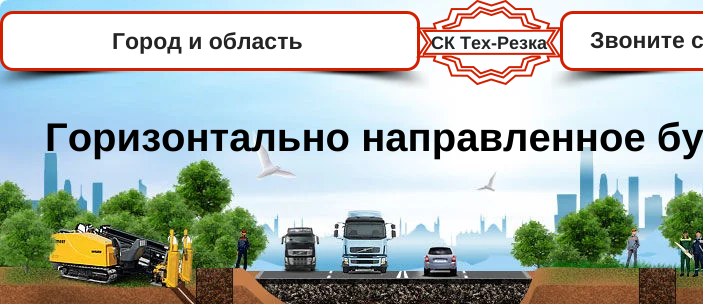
#include <cairo.h>
#include <math.h>
#include <stddef.h>


static void rgb(cairo_t *cr, int r, int g, int b)
{
	cairo_set_source_rgb(cr, r / 255.0, g / 255.0, b / 255.0);
}

static void face(cairo_t *cr, const char *family, double size, int italic, int bold)
{
	cairo_select_font_face(cr, family, italic ? CAIRO_FONT_SLANT_ITALIC : CAIRO_FONT_SLANT_NORMAL,
		bold ? CAIRO_FONT_WEIGHT_BOLD : CAIRO_FONT_WEIGHT_NORMAL);
	cairo_set_font_size(cr, size);
}

static void label(cairo_t *cr, double x, double y, const char *s)
{
	cairo_move_to(cr, x, y);
	cairo_show_text(cr, s);
}

static void rrect(cairo_t *cr, double x, double y, double w, double h, double r)
{
	cairo_new_sub_path(cr);
	cairo_arc(cr, x + w - r, y + h - r, r, 0, M_PI / 2);
	cairo_arc(cr, x + r, y + h - r, r, M_PI / 2, M_PI);
	cairo_arc(cr, x + r, y + r, r, M_PI, 1.5 * M_PI);
	cairo_arc(cr, x + w - r, y + r, r, 1.5 * M_PI, 2 * M_PI);
	cairo_close_path(cr);
}

static void image(cairo_t *cr, const char *path, double x, double y, double w, double h)
{
	cairo_surface_t *image = cairo_image_surface_create_from_png(path);
	cairo_save(cr);
	cairo_set_source_surface(cr, image, x, y);
	cairo_rectangle(cr, x, y, w, h);
	cairo_fill(cr);
	cairo_restore(cr);
	cairo_surface_destroy(image);
}

static void draw(cairo_t *cr) {
	rgb(cr, 255, 255, 255);
	cairo_paint(cr);
	image(cr, "image0.png", 0, 0, 703, 304);
	rgb(cr, 255, 255, 255);
	rrect(cr, 1.5, 12.5, 417, 57, 11.5);
	cairo_fill_preserve(cr);
	rgb(cr, 209, 31, 0);
	cairo_set_line_width(cr, 3);
	cairo_stroke(cr);
	image(cr, "image1.png", 0, 71, 145, 18);
	image(cr, "image2.png", 275, 71, 154, 18);
	image(cr, "image4.png", 551, 71, 152, 18);
	image(cr, "image3.png", 416, 0, 144, 86);
	rgb(cr, 255, 255, 255);
	rrect(cr, 561.5, 12.5, 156, 57, 11.5);
	cairo_fill_preserve(cr);
	rgb(cr, 209, 31, 0);
	cairo_stroke(cr);
	face(cr, "Liberation Sans", 23, 0, 1);
	rgb(cr, 37, 36, 36);
	label(cr, 590, 48, "Звоните с");
	face(cr, "Liberation Sans", 18, 0, 1);
	label(cr, 431, 49, "СК Тех-Резка");
	face(cr, "Liberation Sans", 23, 0, 1);
	label(cr, 112, 49, "Город и область");
	face(cr, "Liberation Sans", 40, 0, 1);
	rgb(cr, 0, 0, 0);
	label(cr, 45, 151, "Горизонтально направленное бу");
}

int main(void) {
	cairo_surface_t *surface = cairo_image_surface_create(CAIRO_FORMAT_RGB24, 703, 304);
	cairo_t *cr = cairo_create(surface);
	cairo_font_options_t *options = cairo_font_options_create();
	cairo_font_options_set_hint_metrics(options, CAIRO_HINT_METRICS_OFF);
	cairo_font_options_set_hint_style(options, CAIRO_HINT_STYLE_NONE);
	cairo_set_font_options(cr, options);
	cairo_set_miter_limit(cr, 4);
	draw(cr);
	cairo_surface_write_to_png(surface, "render.png");
	cairo_font_options_destroy(options);
	cairo_destroy(cr);
	cairo_surface_destroy(surface);
	return 0;
}
